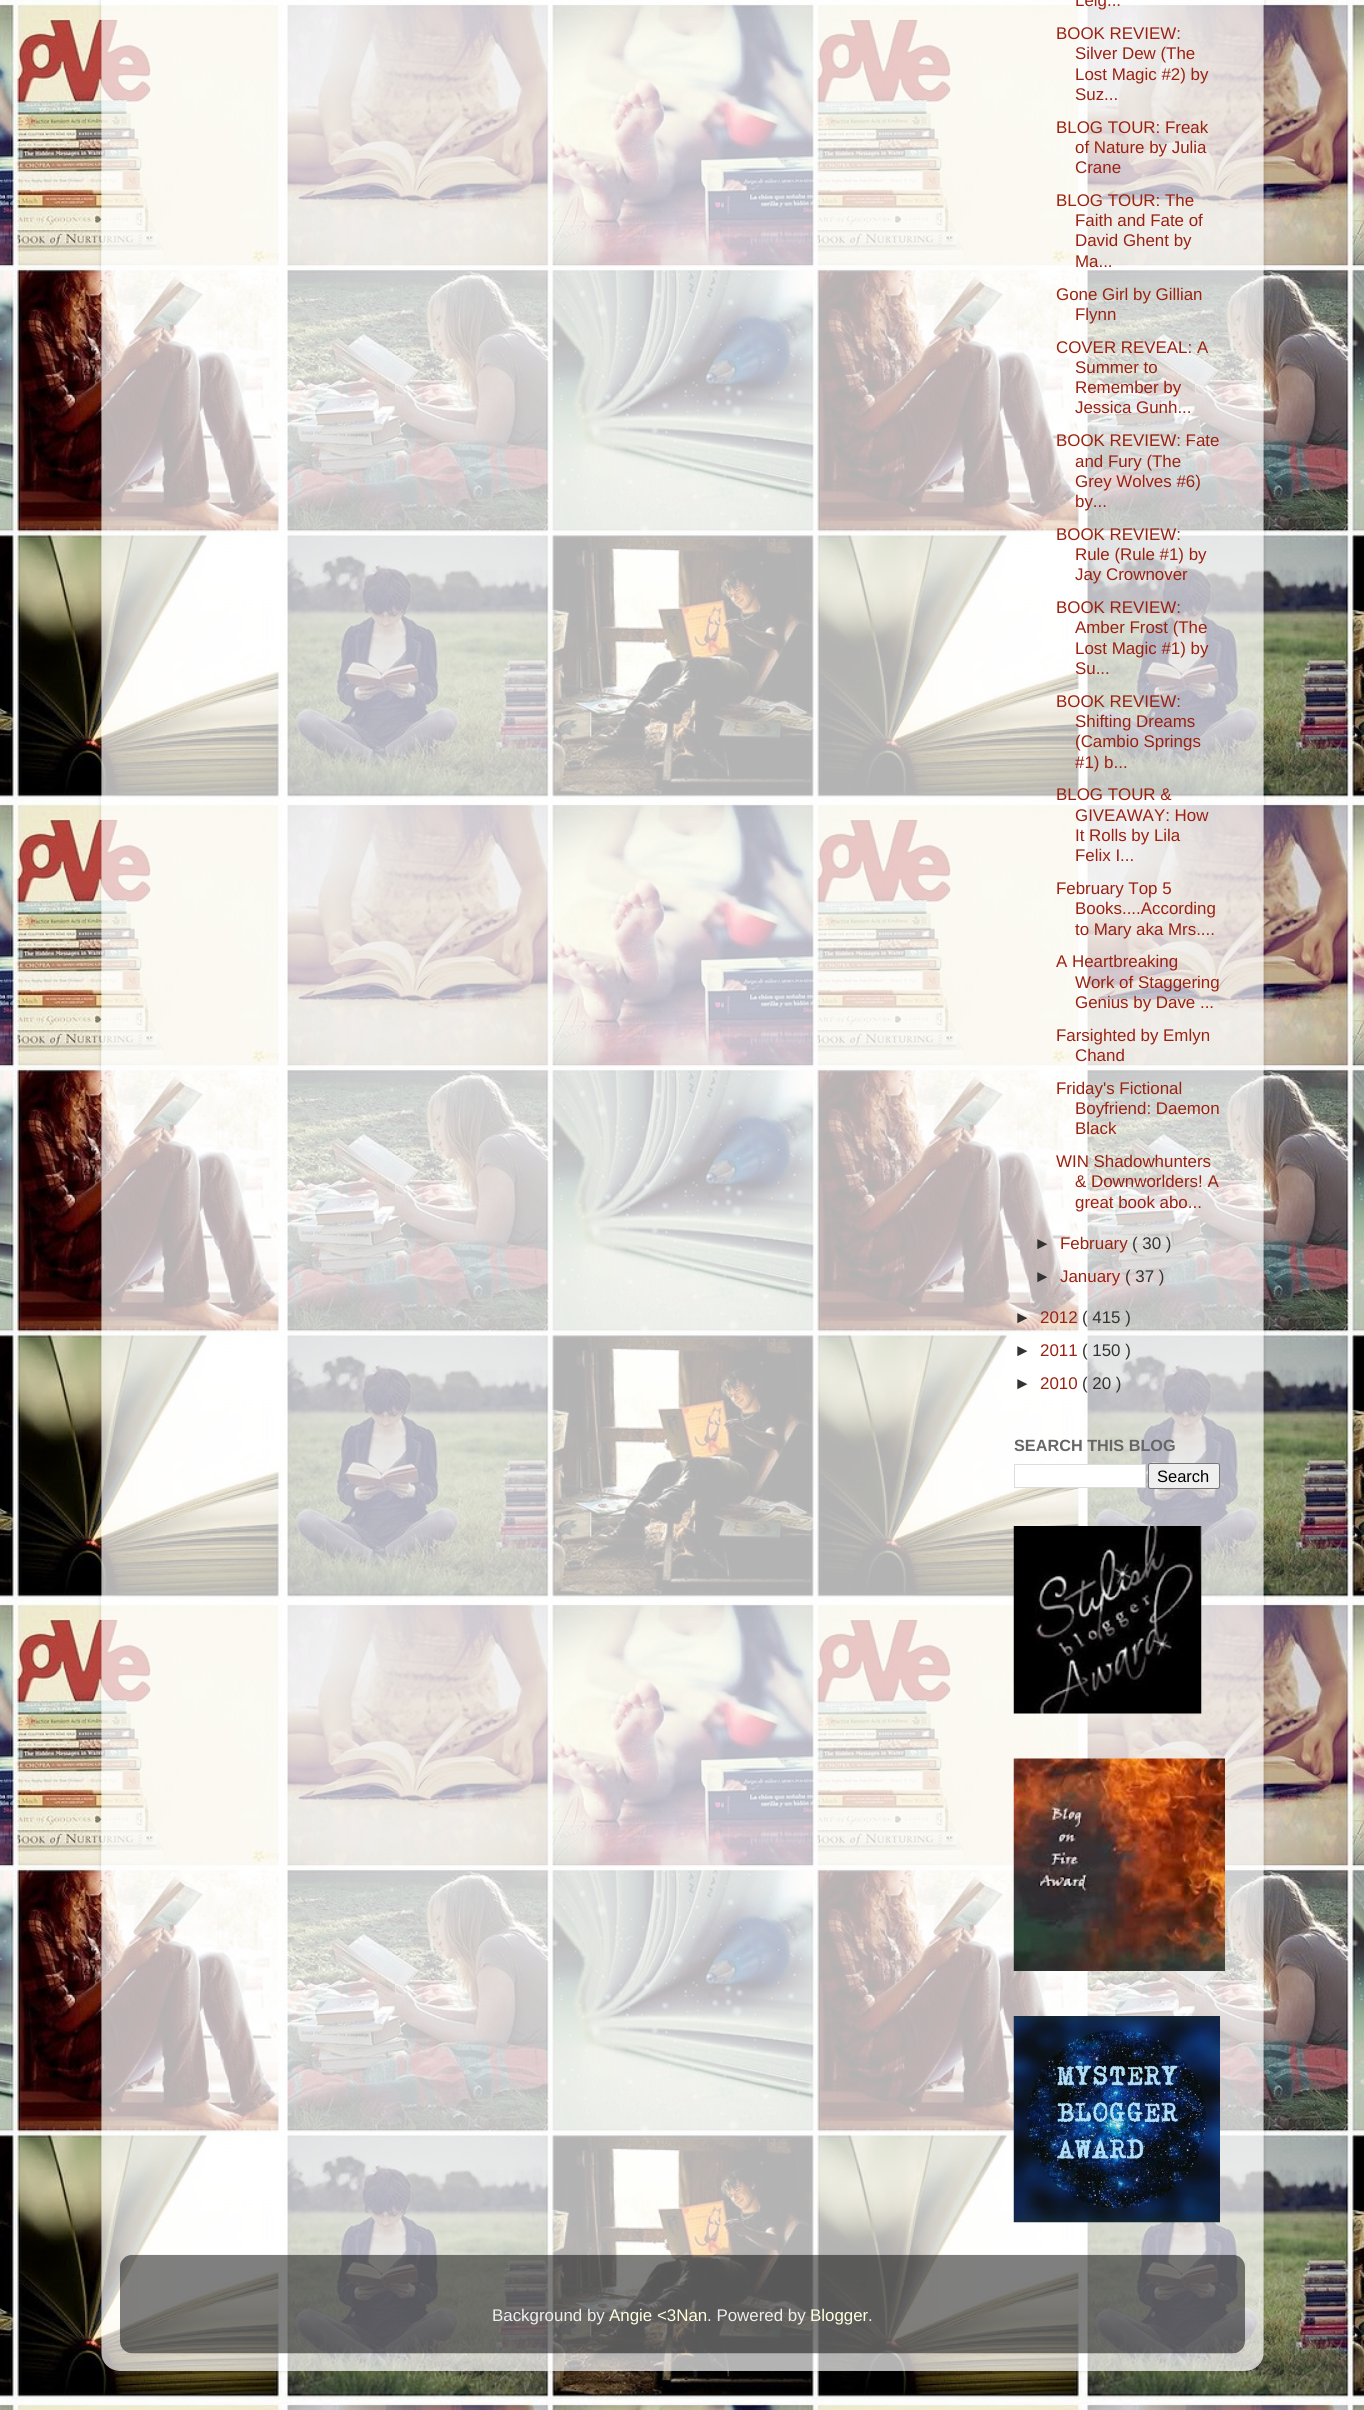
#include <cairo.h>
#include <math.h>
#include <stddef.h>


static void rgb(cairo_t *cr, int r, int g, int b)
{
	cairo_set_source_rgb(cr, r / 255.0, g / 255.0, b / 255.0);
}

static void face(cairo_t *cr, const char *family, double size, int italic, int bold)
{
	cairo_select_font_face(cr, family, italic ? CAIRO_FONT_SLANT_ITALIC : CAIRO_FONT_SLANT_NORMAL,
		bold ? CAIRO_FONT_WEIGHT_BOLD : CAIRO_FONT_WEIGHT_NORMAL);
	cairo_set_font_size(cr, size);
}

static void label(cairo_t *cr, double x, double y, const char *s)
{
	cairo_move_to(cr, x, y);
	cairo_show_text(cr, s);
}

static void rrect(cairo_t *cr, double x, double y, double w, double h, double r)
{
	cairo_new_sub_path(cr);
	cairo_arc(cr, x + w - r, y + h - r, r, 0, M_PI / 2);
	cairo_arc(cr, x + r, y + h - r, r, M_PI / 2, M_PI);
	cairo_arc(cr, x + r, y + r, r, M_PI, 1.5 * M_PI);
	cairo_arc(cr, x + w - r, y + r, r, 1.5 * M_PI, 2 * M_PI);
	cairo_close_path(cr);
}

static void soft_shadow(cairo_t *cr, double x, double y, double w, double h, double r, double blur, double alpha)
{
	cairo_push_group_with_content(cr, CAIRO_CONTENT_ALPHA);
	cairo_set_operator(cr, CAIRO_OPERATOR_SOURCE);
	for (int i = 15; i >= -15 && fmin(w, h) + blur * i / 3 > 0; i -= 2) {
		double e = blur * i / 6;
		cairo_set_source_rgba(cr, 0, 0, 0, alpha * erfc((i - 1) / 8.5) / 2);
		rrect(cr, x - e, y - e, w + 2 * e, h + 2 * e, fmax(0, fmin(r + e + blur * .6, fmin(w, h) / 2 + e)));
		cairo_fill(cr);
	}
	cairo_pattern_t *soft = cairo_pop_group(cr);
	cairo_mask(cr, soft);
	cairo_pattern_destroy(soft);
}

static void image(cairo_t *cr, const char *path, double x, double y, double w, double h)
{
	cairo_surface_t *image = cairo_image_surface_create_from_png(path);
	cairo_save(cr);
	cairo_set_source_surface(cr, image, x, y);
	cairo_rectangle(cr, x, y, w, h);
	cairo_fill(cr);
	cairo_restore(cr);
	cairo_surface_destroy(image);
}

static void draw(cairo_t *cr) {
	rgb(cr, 255, 255, 255);
	cairo_paint(cr);
	image(cr, "image0.png", 0, 0, 1364, 2410);
	cairo_save(cr);
	cairo_set_fill_rule(cr, CAIRO_FILL_RULE_EVEN_ODD);
	cairo_new_path(cr);
	cairo_move_to(cr, 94, 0);
	cairo_line_to(cr, 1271, 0);
	cairo_line_to(cr, 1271, 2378);
	cairo_line_to(cr, 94, 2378);
	cairo_close_path(cr);
	cairo_move_to(cr, 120, -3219);
	cairo_line_to(cr, 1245, -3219);
	cairo_curve_to(cr, 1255.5, -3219, 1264, -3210.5, 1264, -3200);
	cairo_line_to(cr, 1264, 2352);
	cairo_curve_to(cr, 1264, 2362.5, 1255.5, 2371, 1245, 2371);
	cairo_line_to(cr, 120, 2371);
	cairo_curve_to(cr, 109.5, 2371, 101, 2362.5, 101, 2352);
	cairo_line_to(cr, 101, -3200);
	cairo_curve_to(cr, 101, -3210.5, 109.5, -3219, 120, -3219);
	cairo_close_path(cr);
	cairo_clip(cr);
	rgb(cr, 0, 0, 0);
	soft_shadow(cr, 101, -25, 1163, 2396, 19, 2, 0.15);
	cairo_restore(cr);
	image(cr, "image1.png", 101, 0, 1163, 2371);
	face(cr, "Liberation Sans", 16.9, 0, 0);
	rgb(cr, 153, 34, 17);
	label(cr, 1075, 6, "Leig...");
	label(cr, 1056, 39, "BOOK REVIEW:");
	label(cr, 1075, 59, "Silver Dew (The");
	label(cr, 1075, 80, "Lost Magic #2) by");
	label(cr, 1075, 100, "Suz...");
	label(cr, 1056, 133, "BLOG TOUR: Freak");
	label(cr, 1075, 153, "of Nature by Julia");
	label(cr, 1075, 173, "Crane");
	label(cr, 1056, 206, "BLOG TOUR: The");
	label(cr, 1075, 226, "Faith and Fate of");
	label(cr, 1075, 246, "David Ghent by");
	label(cr, 1075, 267, "Ma...");
	label(cr, 1056, 300, "Gone Girl by Gillian");
	label(cr, 1075, 320, "Flynn");
	label(cr, 1056, 353, "COVER REVEAL: A");
	label(cr, 1075, 373, "Summer to");
	label(cr, 1075, 393, "Remember by");
	label(cr, 1075, 413, "Jessica Gunh...");
	label(cr, 1056, 446, "BOOK REVIEW: Fate");
	label(cr, 1075, 467, "and Fury (The");
	label(cr, 1075, 487, "Grey Wolves #6)");
	label(cr, 1075, 507, "by...");
	label(cr, 1056, 540, "BOOK REVIEW:");
	label(cr, 1075, 560, "Rule (Rule #1) by");
	label(cr, 1075, 580, "Jay Crownover");
	label(cr, 1056, 613, "BOOK REVIEW:");
	label(cr, 1075, 633, "Amber Frost (The");
	label(cr, 1075, 654, "Lost Magic #1) by");
	label(cr, 1075, 674, "Su...");
	label(cr, 1056, 707, "BOOK REVIEW:");
	label(cr, 1075, 727, "Shifting Dreams");
	label(cr, 1075, 747, "(Cambio Springs");
	label(cr, 1075, 768, "#1) b...");
	label(cr, 1056, 800, "BLOG TOUR &");
	label(cr, 1075, 821, "GIVEAWAY: How");
	label(cr, 1075, 841, "It Rolls by Lila");
	label(cr, 1075, 861, "Felix I...");
	label(cr, 1056, 894, "February Top 5");
	label(cr, 1075, 914, "Books....According");
	label(cr, 1075, 935, "to Mary aka Mrs....");
	label(cr, 1056, 967, "A Heartbreaking");
	label(cr, 1075, 988, "Work of Staggering");
	label(cr, 1075, 1008, "Genius by Dave ...");
	label(cr, 1056, 1041, "Farsighted by Emlyn");
	label(cr, 1075, 1061, "Chand");
	label(cr, 1056, 1094, "Friday's Fictional");
	label(cr, 1075, 1114, "Boyfriend: Daemon");
	label(cr, 1075, 1134, "Black");
	label(cr, 1056, 1167, "WIN Shadowhunters");
	label(cr, 1075, 1187, "& Downworlders! A");
	label(cr, 1075, 1208, "great book abo...");
	rgb(cr, 51, 51, 51);
	label(cr, 1034, 1249, "►");
	rgb(cr, 153, 34, 17);
	label(cr, 1060, 1249, "February");
	rgb(cr, 51, 51, 51);
	label(cr, 1132, 1249, "( 30 )");
	label(cr, 1034, 1282, "►");
	rgb(cr, 153, 34, 17);
	label(cr, 1060, 1282, "January");
	rgb(cr, 51, 51, 51);
	label(cr, 1125, 1282, "( 37 )");
	label(cr, 1014, 1323, "►");
	rgb(cr, 153, 34, 17);
	label(cr, 1040, 1323, "2012");
	rgb(cr, 51, 51, 51);
	label(cr, 1082, 1323, "( 415 )");
	label(cr, 1014, 1356, "►");
	rgb(cr, 153, 34, 17);
	label(cr, 1040, 1356, "2011");
	rgb(cr, 51, 51, 51);
	label(cr, 1082, 1356, "( 150 )");
	label(cr, 1014, 1389, "►");
	rgb(cr, 153, 34, 17);
	label(cr, 1040, 1389, "2010");
	rgb(cr, 51, 51, 51);
	label(cr, 1082, 1389, "( 20 )");
	face(cr, "Liberation Sans", 16.25, 0, 1);
	rgb(cr, 102, 102, 102);
	label(cr, 1014, 1451, "SEARCH THIS BLOG");
	rgb(cr, 255, 255, 255);
	cairo_rectangle(cr, 1014.5, 1464.5, 131, 23);
	cairo_fill_preserve(cr);
	rgb(cr, 221, 221, 221);
	cairo_set_line_width(cr, 1);
	cairo_stroke(cr);
	rgb(cr, 239, 239, 239);
	rrect(cr, 1148.5, 1463.5, 71, 25, 2);
	cairo_fill_preserve(cr);
	rgb(cr, 118, 118, 118);
	cairo_stroke(cr);
	face(cr, "Liberation Sans", 16.5, 0, 0);
	rgb(cr, 0, 0, 0);
	label(cr, 1157, 1482, "Search");
	image(cr, "image2.png", 1013, 1526, 189, 188);
	image(cr, "image3.png", 1013, 1758, 212, 213);
	image(cr, "image4.png", 1013, 2016, 207, 207);
	image(cr, "image5.png", 120, 2254, 1125, 100);
	face(cr, "Liberation Sans", 16.9, 0, 0);
	rgb(cr, 238, 238, 238);
	label(cr, 492, 2321, "Background by");
	rgb(cr, 255, 255, 221);
	label(cr, 609, 2321, "Angie <3Nan");
	rgb(cr, 238, 238, 238);
	label(cr, 707, 2321, ". Powered by");
	rgb(cr, 255, 255, 221);
	label(cr, 810, 2321, "Blogger");
	rgb(cr, 238, 238, 238);
	label(cr, 868, 2321, ".");
}

int main(void) {
	cairo_surface_t *surface = cairo_image_surface_create(CAIRO_FORMAT_RGB24, 1364, 2410);
	cairo_t *cr = cairo_create(surface);
	cairo_font_options_t *options = cairo_font_options_create();
	cairo_font_options_set_hint_metrics(options, CAIRO_HINT_METRICS_OFF);
	cairo_font_options_set_hint_style(options, CAIRO_HINT_STYLE_NONE);
	cairo_set_font_options(cr, options);
	cairo_set_miter_limit(cr, 4);
	draw(cr);
	cairo_surface_write_to_png(surface, "render.png");
	cairo_font_options_destroy(options);
	cairo_destroy(cr);
	cairo_surface_destroy(surface);
	return 0;
}
